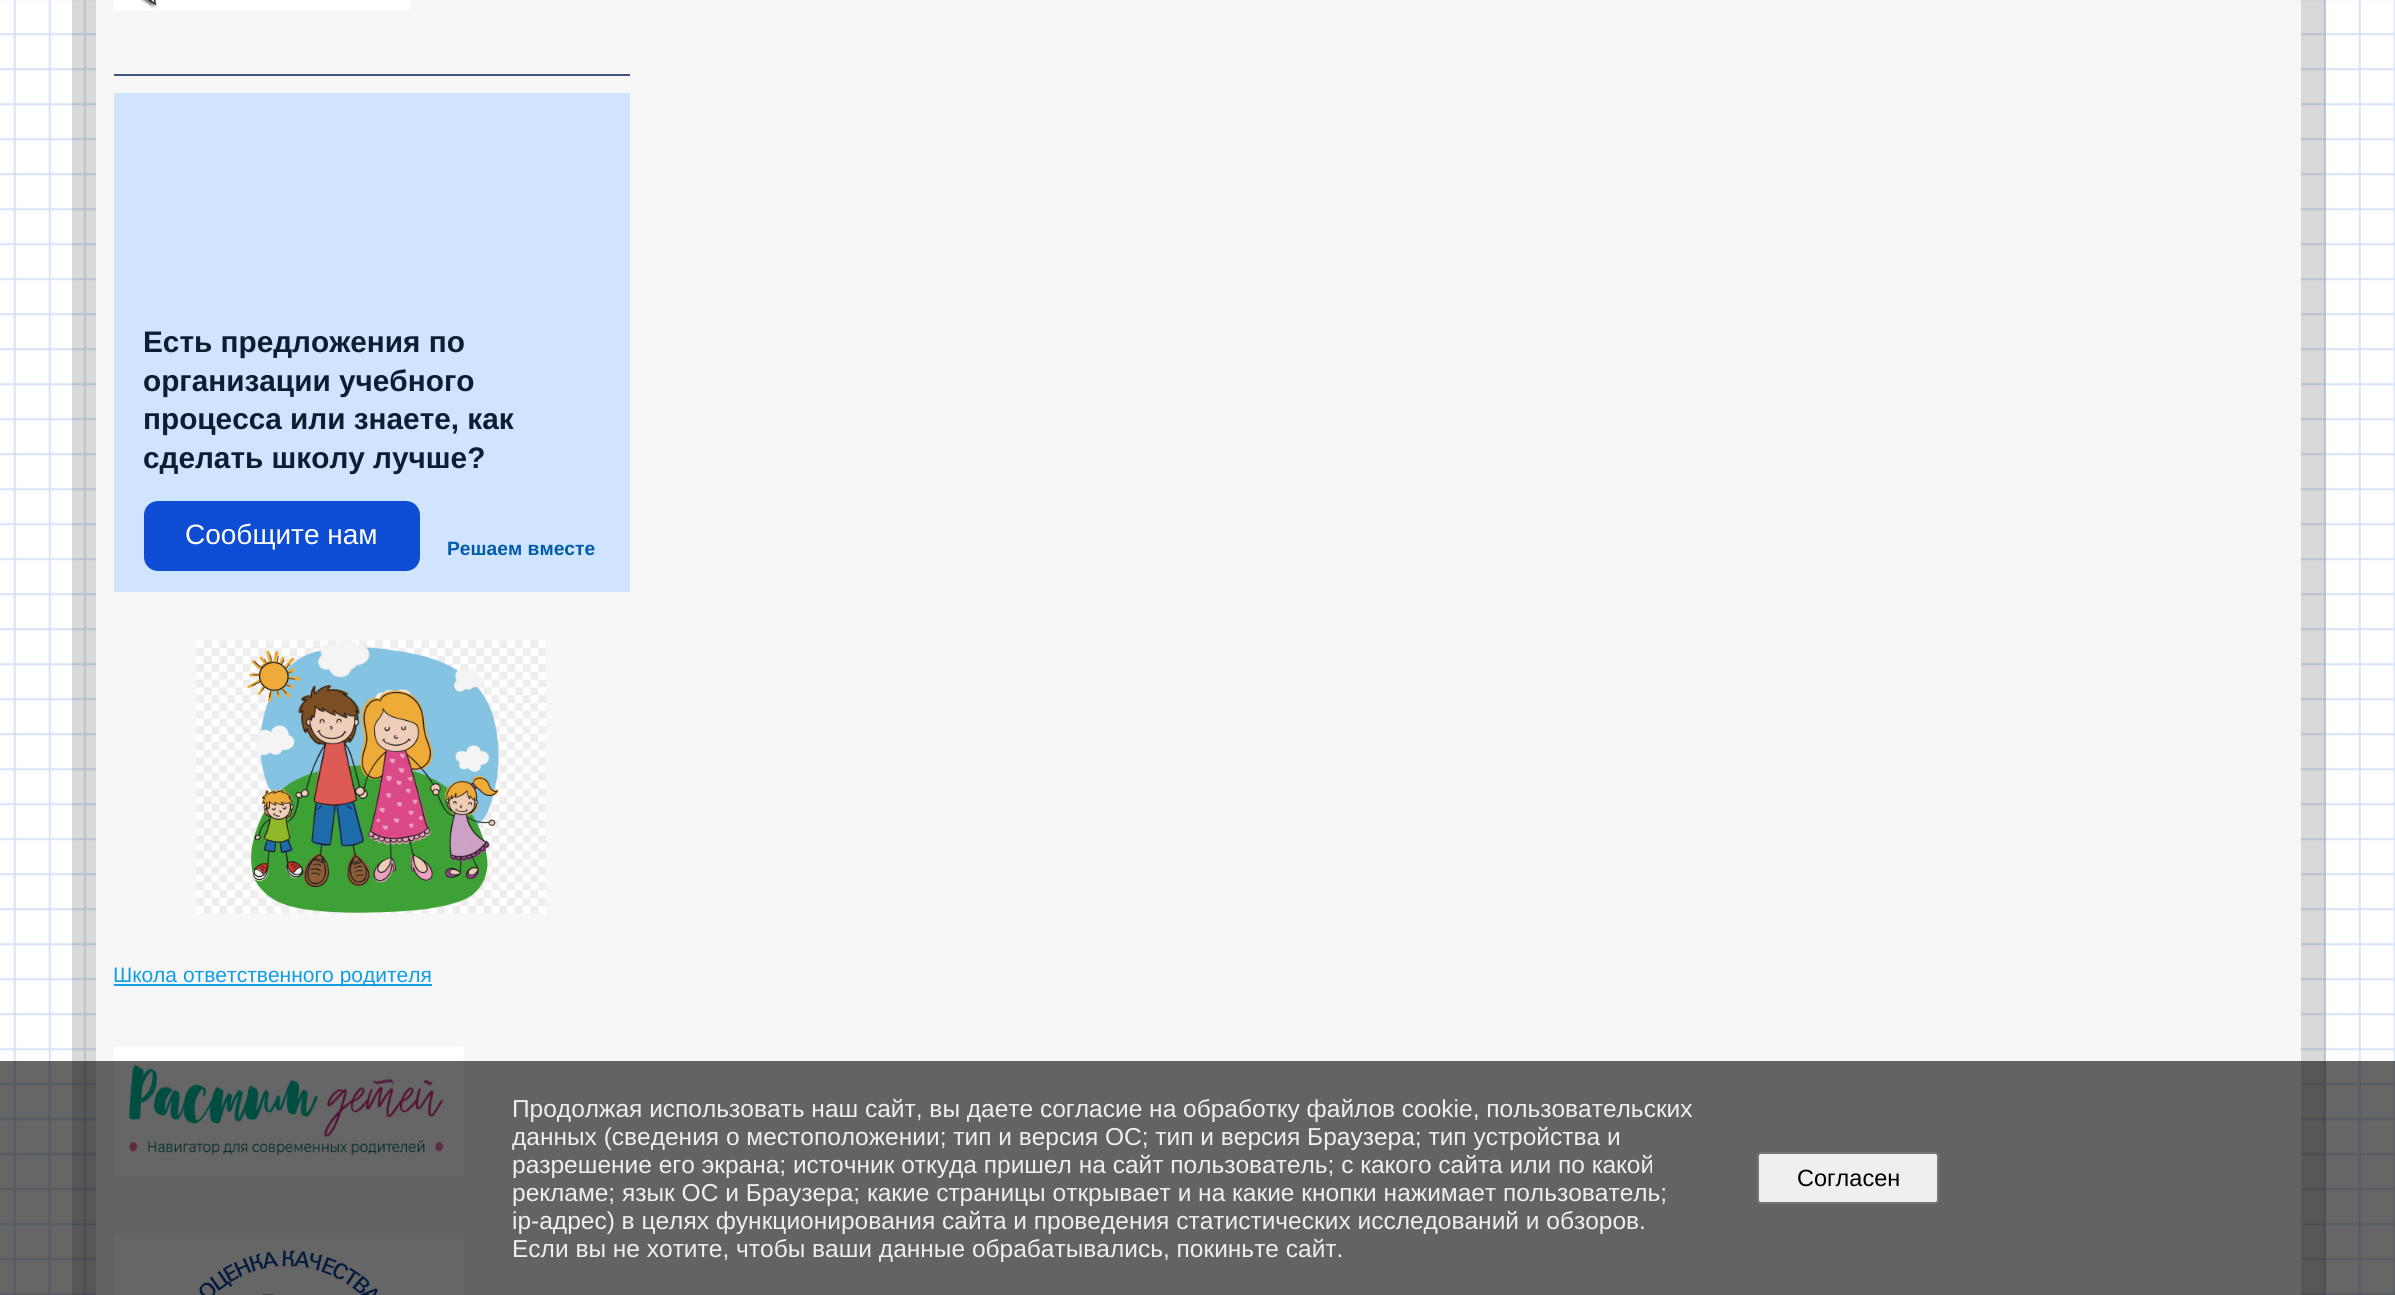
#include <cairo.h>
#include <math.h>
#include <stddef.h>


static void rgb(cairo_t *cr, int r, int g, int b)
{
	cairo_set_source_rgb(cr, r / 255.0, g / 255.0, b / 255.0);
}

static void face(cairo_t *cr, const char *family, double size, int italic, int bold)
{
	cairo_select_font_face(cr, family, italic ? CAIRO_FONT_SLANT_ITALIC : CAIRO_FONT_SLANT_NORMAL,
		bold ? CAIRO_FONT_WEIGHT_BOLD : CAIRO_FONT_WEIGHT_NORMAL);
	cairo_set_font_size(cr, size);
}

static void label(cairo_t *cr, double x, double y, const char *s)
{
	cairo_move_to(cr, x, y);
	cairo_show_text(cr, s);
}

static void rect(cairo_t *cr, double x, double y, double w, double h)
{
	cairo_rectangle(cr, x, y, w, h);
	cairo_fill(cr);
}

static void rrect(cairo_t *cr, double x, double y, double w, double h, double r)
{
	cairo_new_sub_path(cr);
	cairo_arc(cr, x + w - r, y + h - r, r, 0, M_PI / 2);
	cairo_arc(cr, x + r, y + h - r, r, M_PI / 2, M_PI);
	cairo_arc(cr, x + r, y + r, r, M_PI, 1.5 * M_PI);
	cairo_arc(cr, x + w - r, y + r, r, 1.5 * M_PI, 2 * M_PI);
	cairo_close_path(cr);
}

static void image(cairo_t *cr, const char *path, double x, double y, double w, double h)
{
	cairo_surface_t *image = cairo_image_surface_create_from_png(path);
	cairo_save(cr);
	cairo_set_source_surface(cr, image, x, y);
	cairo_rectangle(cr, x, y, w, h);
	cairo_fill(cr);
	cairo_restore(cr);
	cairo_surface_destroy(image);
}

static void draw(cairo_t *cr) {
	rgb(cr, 255, 255, 255);
	cairo_paint(cr);
	image(cr, "image0.png", 0, 0, 2395, 1295);
	cairo_rectangle(cr, 84.5, -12.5, 2229, 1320);
	cairo_set_source_rgba(cr, 0, 0, 0, 0.15);
	cairo_set_line_width(cr, 25);
	cairo_stroke(cr);
	rgb(cr, 247, 247, 247);
	rect(cr, 96, 0, 2205, 1295);
	image(cr, "image1.png", 114, 0, 297, 11);
	rgb(cr, 66, 87, 123);
	rect(cr, 114, 74, 516, 2);
	rgb(cr, 209, 228, 255);
	rect(cr, 114, 93, 516, 499);
	face(cr, "Liberation Sans", 29.75, 0, 1);
	rgb(cr, 11, 31, 51);
	label(cr, 143, 352, "Есть предложения по");
	label(cr, 143, 391, "организации учебного");
	label(cr, 143, 429, "процесса или знаете, как");
	label(cr, 143, 468, "сделать школу лучше?");
	rgb(cr, 13, 76, 211);
	rrect(cr, 144, 501, 276, 70, 14);
	cairo_fill(cr);
	face(cr, "Liberation Sans", 28, 0, 0);
	rgb(cr, 255, 255, 255);
	label(cr, 185, 544, "Сообщите нам");
	face(cr, "Liberation Sans", 19.25, 0, 1);
	rgb(cr, 0, 92, 169);
	label(cr, 447, 555, "Решаем вместе");
	image(cr, "image2.png", 196, 640, 350, 274);
	rgb(cr, 15, 158, 230);
	rect(cr, 114, 984, 318, 2);
	face(cr, "Liberation Sans", 21, 0, 0);
	label(cr, 113, 982, "Школа ответственного родителя");
	image(cr, "image3.png", 114, 1047, 350, 129);
	image(cr, "image4.png", 114, 1234, 350, 61);
	cairo_set_source_rgba(cr, 0, 0, 0, 0.6);
	rect(cr, 0, 1061, 2395, 234);
	face(cr, "Liberation Sans", 24.5, 0, 0);
	rgb(cr, 239, 239, 239);
	label(cr, 512, 1117, "Продолжая использовать наш сайт, вы даете согласие на обработку файлов cookie, пользовательских");
	label(cr, 512, 1145, "данных (сведения о местоположении; тип и версия ОС; тип и версия Браузера; тип устройства и");
	label(cr, 512, 1173, "разрешение его экрана; источник откуда пришел на сайт пользователь; с какого сайта или по какой");
	label(cr, 512, 1201, "рекламе; язык ОС и Браузера; какие страницы открывает и на какие кнопки нажимает пользователь;");
	label(cr, 512, 1229, "ip-адрес) в целях функционирования сайта и проведения статистических исследований и обзоров.");
	label(cr, 512, 1257, "Если вы не хотите, чтобы ваши данные обрабатывались, покиньте сайт.");
	rrect(cr, 1758, 1153, 180, 50, 3);
	cairo_fill_preserve(cr);
	rgb(cr, 118, 118, 118);
	cairo_set_line_width(cr, 2);
	cairo_stroke(cr);
	face(cr, "Liberation Sans", 23.5, 0, 0);
	rgb(cr, 0, 0, 0);
	label(cr, 1797, 1186, "Согласен");
}

int main(void) {
	cairo_surface_t *surface = cairo_image_surface_create(CAIRO_FORMAT_RGB24, 2395, 1295);
	cairo_t *cr = cairo_create(surface);
	cairo_font_options_t *options = cairo_font_options_create();
	cairo_font_options_set_hint_metrics(options, CAIRO_HINT_METRICS_OFF);
	cairo_font_options_set_hint_style(options, CAIRO_HINT_STYLE_NONE);
	cairo_set_font_options(cr, options);
	cairo_set_miter_limit(cr, 4);
	draw(cr);
	cairo_surface_write_to_png(surface, "render.png");
	cairo_font_options_destroy(options);
	cairo_destroy(cr);
	cairo_surface_destroy(surface);
	return 0;
}
